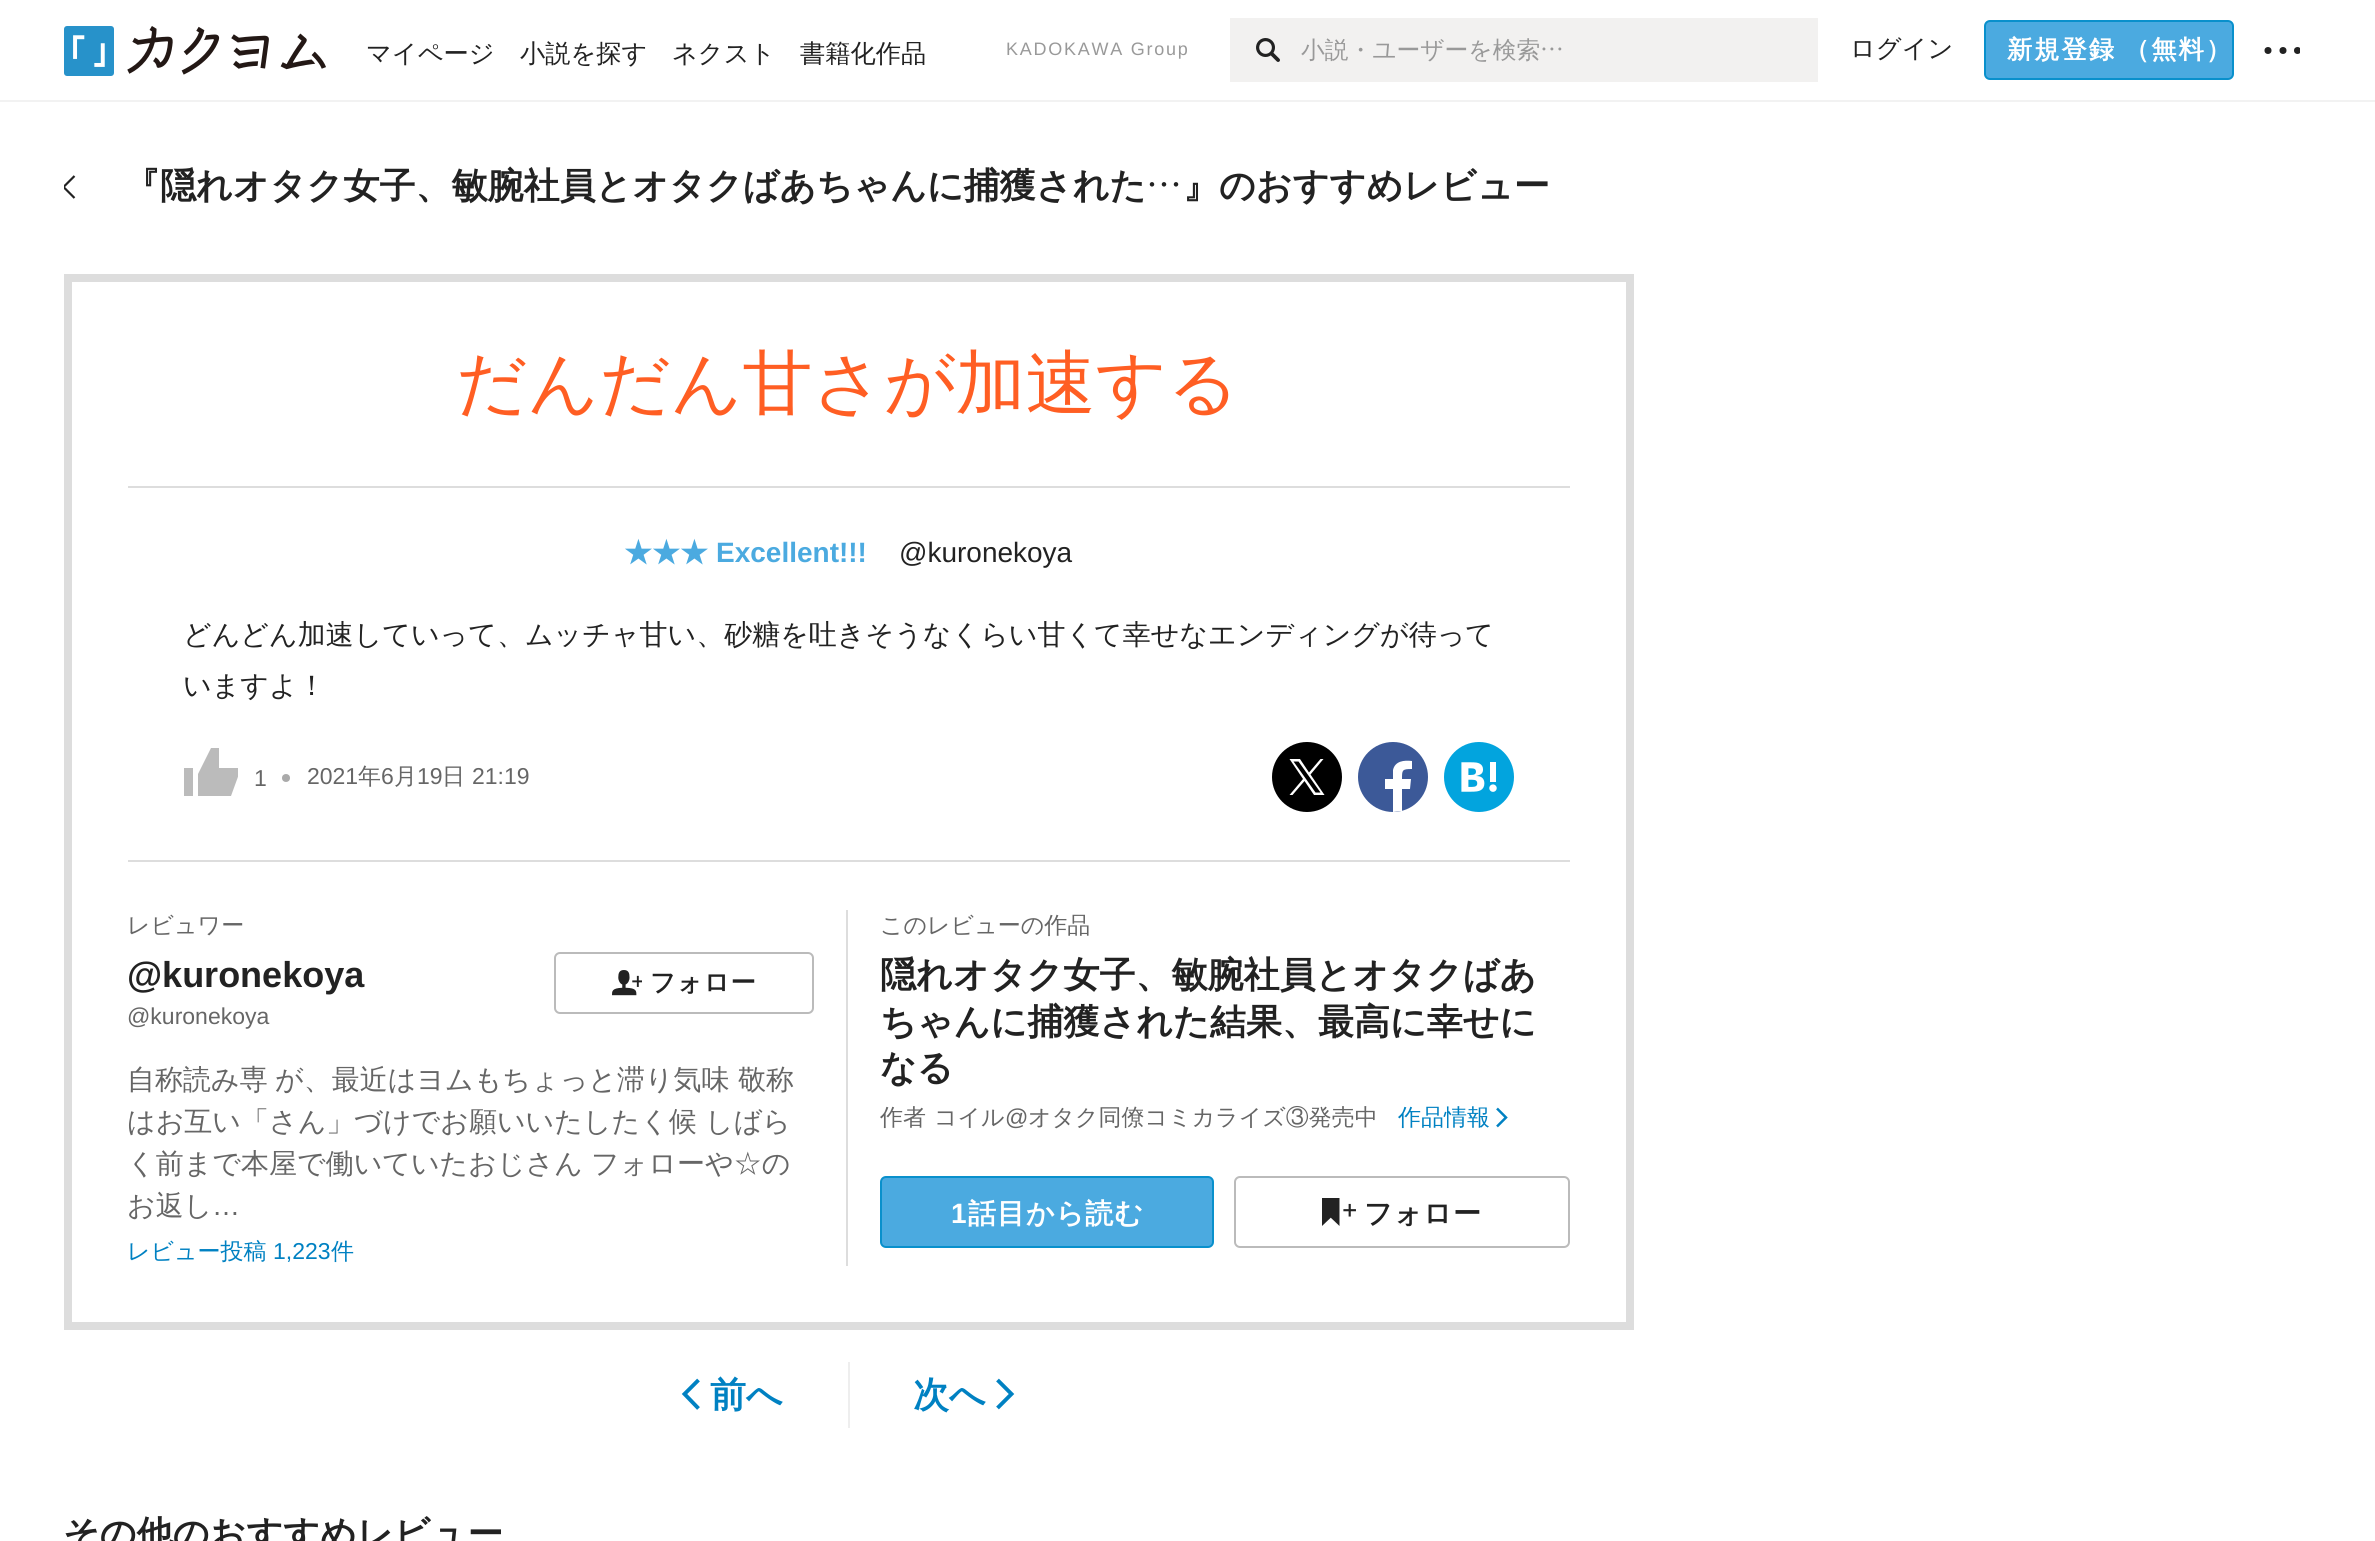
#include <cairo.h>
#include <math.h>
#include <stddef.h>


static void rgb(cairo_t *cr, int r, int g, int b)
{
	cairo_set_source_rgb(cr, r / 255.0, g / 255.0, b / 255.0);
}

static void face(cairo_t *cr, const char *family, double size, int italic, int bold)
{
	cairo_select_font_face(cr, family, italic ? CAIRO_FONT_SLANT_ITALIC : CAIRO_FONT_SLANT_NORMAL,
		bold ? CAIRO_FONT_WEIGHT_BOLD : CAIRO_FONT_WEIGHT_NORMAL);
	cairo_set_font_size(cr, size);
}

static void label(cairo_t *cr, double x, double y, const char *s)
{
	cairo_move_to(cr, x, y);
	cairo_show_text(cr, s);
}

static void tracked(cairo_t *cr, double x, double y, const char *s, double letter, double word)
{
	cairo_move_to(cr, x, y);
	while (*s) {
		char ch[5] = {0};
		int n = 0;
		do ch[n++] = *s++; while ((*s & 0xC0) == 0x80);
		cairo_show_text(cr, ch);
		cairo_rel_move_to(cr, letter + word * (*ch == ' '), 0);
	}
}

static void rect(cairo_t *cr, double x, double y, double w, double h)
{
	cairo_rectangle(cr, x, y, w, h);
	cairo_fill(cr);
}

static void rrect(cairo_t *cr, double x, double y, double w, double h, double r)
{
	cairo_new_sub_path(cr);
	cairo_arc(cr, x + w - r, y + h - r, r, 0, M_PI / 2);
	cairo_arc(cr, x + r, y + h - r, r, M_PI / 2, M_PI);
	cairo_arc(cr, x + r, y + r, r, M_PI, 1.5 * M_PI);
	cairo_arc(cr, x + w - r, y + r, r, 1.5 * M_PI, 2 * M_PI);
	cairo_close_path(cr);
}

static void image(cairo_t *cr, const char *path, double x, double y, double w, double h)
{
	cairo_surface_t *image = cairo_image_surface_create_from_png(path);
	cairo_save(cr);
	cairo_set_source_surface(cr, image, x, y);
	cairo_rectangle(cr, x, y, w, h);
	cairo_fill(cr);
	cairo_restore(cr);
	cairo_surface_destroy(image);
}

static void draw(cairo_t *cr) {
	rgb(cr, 255, 255, 255);
	cairo_paint(cr);
	rgb(cr, 242, 242, 242);
	rect(cr, 0, 100, 2375, 2);
	image(cr, "image0.png", 64, 26, 262, 50);
	face(cr, "WenQuanYi Zen Hei Medium", 25.25, 0, 0);
	rgb(cr, 34, 34, 34);
	label(cr, 366, 62, "マイページ");
	label(cr, 520, 62, "小説を探す");
	label(cr, 672, 62, "ネクスト");
	label(cr, 800, 62, "書籍化作品");
	face(cr, "Liberation Sans", 18, 0, 0);
	rgb(cr, 153, 153, 153);
	tracked(cr, 1006, 55, "KADOKAWA Group", 1.75, 0);
	rgb(cr, 242, 241, 240);
	rect(cr, 1230, 18, 588, 64);
	image(cr, "image1.png", 1256, 38, 24, 24);
	face(cr, "WenQuanYi Zen Hei Medium", 23.75, 0, 0);
	rgb(cr, 153, 153, 153);
	label(cr, 1301, 58, "小説・ユーザーを検索");
	image(cr, "image2.png", 1542, 47, 20, 4);
	face(cr, "WenQuanYi Zen Hei Medium", 25.25, 0, 0);
	rgb(cr, 34, 34, 34);
	label(cr, 1850, 57, "ログイン");
	rgb(cr, 75, 170, 224);
	rrect(cr, 1985, 21, 248, 58, 5);
	cairo_fill_preserve(cr);
	rgb(cr, 9, 144, 204);
	cairo_stroke(cr);
	face(cr, "WenQuanYi Zen Hei", 25.25, 0, 1);
	rgb(cr, 255, 255, 255);
	tracked(cr, 2007, 58, "新規登録", 2, 0);
	tracked(cr, 2124, 58, "（無料）", 2, 0);
	rgb(cr, 34, 34, 34);
	cairo_new_path(cr);
	cairo_arc(cr, 2268, 50.5, 3.5, 0, 2 * M_PI);
	cairo_fill(cr);
	cairo_arc(cr, 2283, 50.5, 3.5, 0, 2 * M_PI);
	cairo_fill(cr);
	cairo_save(cr);
	cairo_rectangle(cr, 2264, 32, 36, 36);
	cairo_clip(cr);
	cairo_arc(cr, 2297.5, 50.5, 3.5, 0, 2 * M_PI);
	cairo_fill(cr);
	cairo_restore(cr);
	cairo_save(cr);
	cairo_rectangle(cr, 64, 174, 12, 28);
	cairo_clip(cr);
	cairo_new_path(cr);
	cairo_move_to(cr, 74.5, 198);
	cairo_line_to(cr, 63.5, 187);
	cairo_line_to(cr, 74.5, 176);
	cairo_set_line_width(cr, 2.2);
	cairo_stroke(cr);
	cairo_restore(cr);
	face(cr, "WenQuanYi Zen Hei", 36, 0, 1);
	label(cr, 124, 198, "『隠れオタク女子、敏腕社員とオタクばあちゃんに捕獲された");
	image(cr, "image3.png", 1149, 182, 30, 5);
	label(cr, 1183, 198, "』のおすすめレビュー");
	cairo_rectangle(cr, 68, 278, 1562, 1048);
	rgb(cr, 221, 221, 221);
	cairo_set_line_width(cr, 8);
	cairo_stroke(cr);
	rect(cr, 128, 486, 1442, 2);
	face(cr, "WenQuanYi Zen Hei Medium", 70, 0, 0);
	rgb(cr, 255, 94, 35);
	label(cr, 456, 407, "だんだん甘さが加速する");
	rgb(cr, 221, 221, 221);
	rect(cr, 128, 860, 1442, 2);
	face(cr, "WenQuanYi Zen Hei", 28, 0, 1);
	rgb(cr, 75, 170, 224);
	label(cr, 624, 562, "★★★");
	face(cr, "Liberation Sans", 28, 0, 1);
	label(cr, 716, 562, "Excellent!!!");
	face(cr, "Liberation Sans", 28, 0, 0);
	rgb(cr, 34, 34, 34);
	label(cr, 899, 562, "@kuronekoya");
	face(cr, "WenQuanYi Zen Hei Medium", 28, 0, 0);
	label(cr, 183, 644, "どんどん加速していって、ムッチャ甘い、砂糖を吐きそうなくらい甘くて幸せなエンディングが待って");
	label(cr, 183, 695, "いますよ！");
	rgb(cr, 187, 187, 187);
	rect(cr, 184, 768, 9, 28);
	cairo_save(cr);
	cairo_rectangle(cr, 184, 748, 54, 48);
	cairo_clip(cr);
	cairo_new_path(cr);
	cairo_move_to(cr, 239, 774);
	cairo_line_to(cr, 239, 768);
	cairo_line_to(cr, 219, 768);
	cairo_line_to(cr, 219, 748);
	cairo_line_to(cr, 211, 748);
	cairo_line_to(cr, 198, 774);
	cairo_line_to(cr, 198, 796);
	cairo_line_to(cr, 231, 796);
	cairo_close_path(cr);
	cairo_fill(cr);
	cairo_restore(cr);
	face(cr, "Liberation Sans", 23, 0, 0);
	rgb(cr, 102, 102, 102);
	label(cr, 254, 786, "1");
	rgb(cr, 170, 170, 170);
	cairo_new_path(cr);
	cairo_arc(cr, 286, 778, 4, 0, 2 * M_PI);
	cairo_fill(cr);
	rgb(cr, 102, 102, 102);
	label(cr, 307, 784, "2021");
	face(cr, "WenQuanYi Zen Hei Medium", 23, 0, 0);
	label(cr, 358, 784, "年");
	face(cr, "Liberation Sans", 23, 0, 0);
	label(cr, 381, 784, "6");
	face(cr, "WenQuanYi Zen Hei Medium", 23, 0, 0);
	label(cr, 394, 784, "月");
	face(cr, "Liberation Sans", 23, 0, 0);
	label(cr, 417, 784, "19");
	face(cr, "WenQuanYi Zen Hei Medium", 23, 0, 0);
	label(cr, 442, 784, "日");
	face(cr, "Liberation Sans", 23, 0, 0);
	label(cr, 472, 784, "21:19");
	rgb(cr, 0, 0, 0);
	cairo_new_path(cr);
	cairo_arc(cr, 1307, 777, 35, 0, 2 * M_PI);
	cairo_fill(cr);
	rgb(cr, 255, 255, 255);
	cairo_new_path(cr);
	cairo_move_to(cr, 1310.5, 774.5);
	cairo_line_to(cr, 1323.5, 759);
	cairo_line_to(cr, 1320.5, 759);
	cairo_line_to(cr, 1309, 772.5);
	cairo_line_to(cr, 1300, 759);
	cairo_line_to(cr, 1289.5, 759);
	cairo_line_to(cr, 1303, 779);
	cairo_line_to(cr, 1289.5, 795);
	cairo_line_to(cr, 1292.5, 795);
	cairo_line_to(cr, 1304.5, 781);
	cairo_line_to(cr, 1314, 795);
	cairo_line_to(cr, 1324.5, 795);
	cairo_close_path(cr);
	cairo_move_to(cr, 1306, 779);
	cairo_line_to(cr, 1293.5, 761.5);
	cairo_line_to(cr, 1298.5, 761.5);
	cairo_line_to(cr, 1320.5, 792.5);
	cairo_line_to(cr, 1315.5, 792.5);
	cairo_close_path(cr);
	cairo_fill(cr);
	rgb(cr, 60, 89, 152);
	cairo_arc(cr, 1393, 777, 35, 0, 2 * M_PI);
	cairo_fill(cr);
	rgb(cr, 255, 255, 255);
	cairo_new_path(cr);
	cairo_move_to(cr, 1402, 811);
	cairo_line_to(cr, 1393, 812);
	cairo_line_to(cr, 1393, 789);
	cairo_line_to(cr, 1385, 789);
	cairo_line_to(cr, 1385, 779);
	cairo_line_to(cr, 1393, 779);
	cairo_line_to(cr, 1393, 770);
	cairo_curve_to(cr, 1395, 761, 1404, 760, 1412, 761);
	cairo_line_to(cr, 1412, 769);
	cairo_curve_to(cr, 1402, 769, 1402, 770, 1402, 779);
	cairo_line_to(cr, 1411, 779);
	cairo_line_to(cr, 1410, 789);
	cairo_line_to(cr, 1402, 789);
	cairo_close_path(cr);
	cairo_fill(cr);
	image(cr, "image4.png", 1444, 742, 70, 70);
	rgb(cr, 221, 221, 221);
	rect(cr, 846, 910, 2, 356);
	face(cr, "WenQuanYi Zen Hei Medium", 23, 0, 0);
	rgb(cr, 102, 102, 102);
	label(cr, 127, 933, "レビュワー");
	face(cr, "Liberation Sans", 36, 0, 1);
	rgb(cr, 34, 34, 34);
	label(cr, 127, 987, "@kuronekoya");
	face(cr, "Liberation Sans", 23, 0, 0);
	rgb(cr, 102, 102, 102);
	label(cr, 127, 1024, "@kuronekoya");
	rrect(cr, 555, 953, 258, 60, 5);
	rgb(cr, 187, 187, 187);
	cairo_set_line_width(cr, 2);
	cairo_stroke(cr);
	image(cr, "image5.png", 612, 970, 30, 26);
	face(cr, "WenQuanYi Zen Hei", 25.25, 0, 1);
	rgb(cr, 34, 34, 34);
	tracked(cr, 650, 991, "フォロー", 1, 0);
	face(cr, "WenQuanYi Zen Hei Medium", 28, 0, 0);
	rgb(cr, 102, 102, 102);
	tracked(cr, 127, 1089, "自称読み専 が、最近はヨムもちょっと滞り気味", 0, -1);
	label(cr, 738, 1089, "敬称");
	label(cr, 127, 1131, "はお互い「さん」づけでお願いいたしたく候");
	label(cr, 705, 1131, "しばら");
	label(cr, 127, 1173, "く前まで本屋で働いていたおじさん");
	label(cr, 591, 1173, "フォローや☆の");
	label(cr, 127, 1215, "お返し");
	face(cr, "Liberation Sans", 28, 0, 0);
	label(cr, 212, 1215, "…");
	face(cr, "WenQuanYi Zen Hei Medium", 23, 0, 0);
	rgb(cr, 0, 129, 194);
	label(cr, 127, 1259, "レビュー投稿");
	face(cr, "Liberation Sans", 23, 0, 0);
	label(cr, 273, 1259, "1,223");
	face(cr, "WenQuanYi Zen Hei Medium", 23, 0, 0);
	label(cr, 331, 1259, "件");
	rgb(cr, 102, 102, 102);
	label(cr, 880, 933, "このレビューの作品");
	face(cr, "WenQuanYi Zen Hei", 36, 0, 1);
	rgb(cr, 34, 34, 34);
	label(cr, 880, 987, "隠れオタク女子、敏腕社員とオタクばあ");
	label(cr, 880, 1034, "ちゃんに捕獲された結果、最高に幸せに");
	label(cr, 880, 1080, "なる");
	face(cr, "WenQuanYi Zen Hei Medium", 23, 0, 0);
	rgb(cr, 102, 102, 102);
	label(cr, 880, 1125, "作者");
	label(cr, 934, 1125, "コイル");
	face(cr, "Liberation Sans", 23, 0, 0);
	label(cr, 1005, 1125, "@");
	face(cr, "WenQuanYi Zen Hei Medium", 23, 0, 0);
	label(cr, 1028, 1125, "オタク同僚コミカライズ③発売中");
	rgb(cr, 0, 129, 194);
	label(cr, 1398, 1125, "作品情報");
	cairo_new_path(cr);
	cairo_move_to(cr, 1497, 1108.5);
	cairo_line_to(cr, 1506, 1117.5);
	cairo_line_to(cr, 1497, 1126.5);
	cairo_set_line_width(cr, 2.5);
	cairo_stroke(cr);
	rgb(cr, 75, 170, 224);
	rrect(cr, 881, 1177, 332, 70, 5);
	cairo_fill_preserve(cr);
	rgb(cr, 9, 144, 204);
	cairo_set_line_width(cr, 2);
	cairo_stroke(cr);
	face(cr, "Liberation Sans", 28, 0, 1);
	rgb(cr, 255, 255, 255);
	tracked(cr, 951, 1223, "1", 1, 0);
	face(cr, "WenQuanYi Zen Hei", 28, 0, 1);
	tracked(cr, 968, 1223, "話目から読む", 1, 0);
	rrect(cr, 1235, 1177, 334, 70, 5);
	rgb(cr, 187, 187, 187);
	cairo_stroke(cr);
	image(cr, "image6.png", 1322, 1198, 34, 28);
	rgb(cr, 34, 34, 34);
	tracked(cr, 1364, 1223, "フォロー", 1, 0);
	cairo_new_path(cr);
	cairo_move_to(cr, 698.5, 1408.5);
	cairo_line_to(cr, 684.5, 1394);
	cairo_line_to(cr, 698.5, 1380);
	rgb(cr, 0, 129, 194);
	cairo_set_line_width(cr, 3.9);
	cairo_stroke(cr);
	face(cr, "WenQuanYi Zen Hei", 36, 0, 1);
	label(cr, 710, 1407, "前へ");
	rgb(cr, 238, 238, 238);
	rect(cr, 848, 1362, 2, 66);
	rgb(cr, 0, 129, 194);
	label(cr, 913, 1407, "次へ");
	cairo_new_path(cr);
	cairo_move_to(cr, 997.5, 1380);
	cairo_line_to(cr, 1011.5, 1394);
	cairo_line_to(cr, 997.5, 1408);
	cairo_stroke(cr);
	rgb(cr, 34, 34, 34);
	label(cr, 63, 1546, "その他のおすすめレビュー");
}

int main(void) {
	cairo_surface_t *surface = cairo_image_surface_create(CAIRO_FORMAT_RGB24, 2375, 1541);
	cairo_t *cr = cairo_create(surface);
	cairo_font_options_t *options = cairo_font_options_create();
	cairo_font_options_set_hint_metrics(options, CAIRO_HINT_METRICS_OFF);
	cairo_font_options_set_hint_style(options, CAIRO_HINT_STYLE_NONE);
	cairo_set_font_options(cr, options);
	cairo_set_miter_limit(cr, 4);
	draw(cr);
	cairo_surface_write_to_png(surface, "render.png");
	cairo_font_options_destroy(options);
	cairo_destroy(cr);
	cairo_surface_destroy(surface);
	return 0;
}
